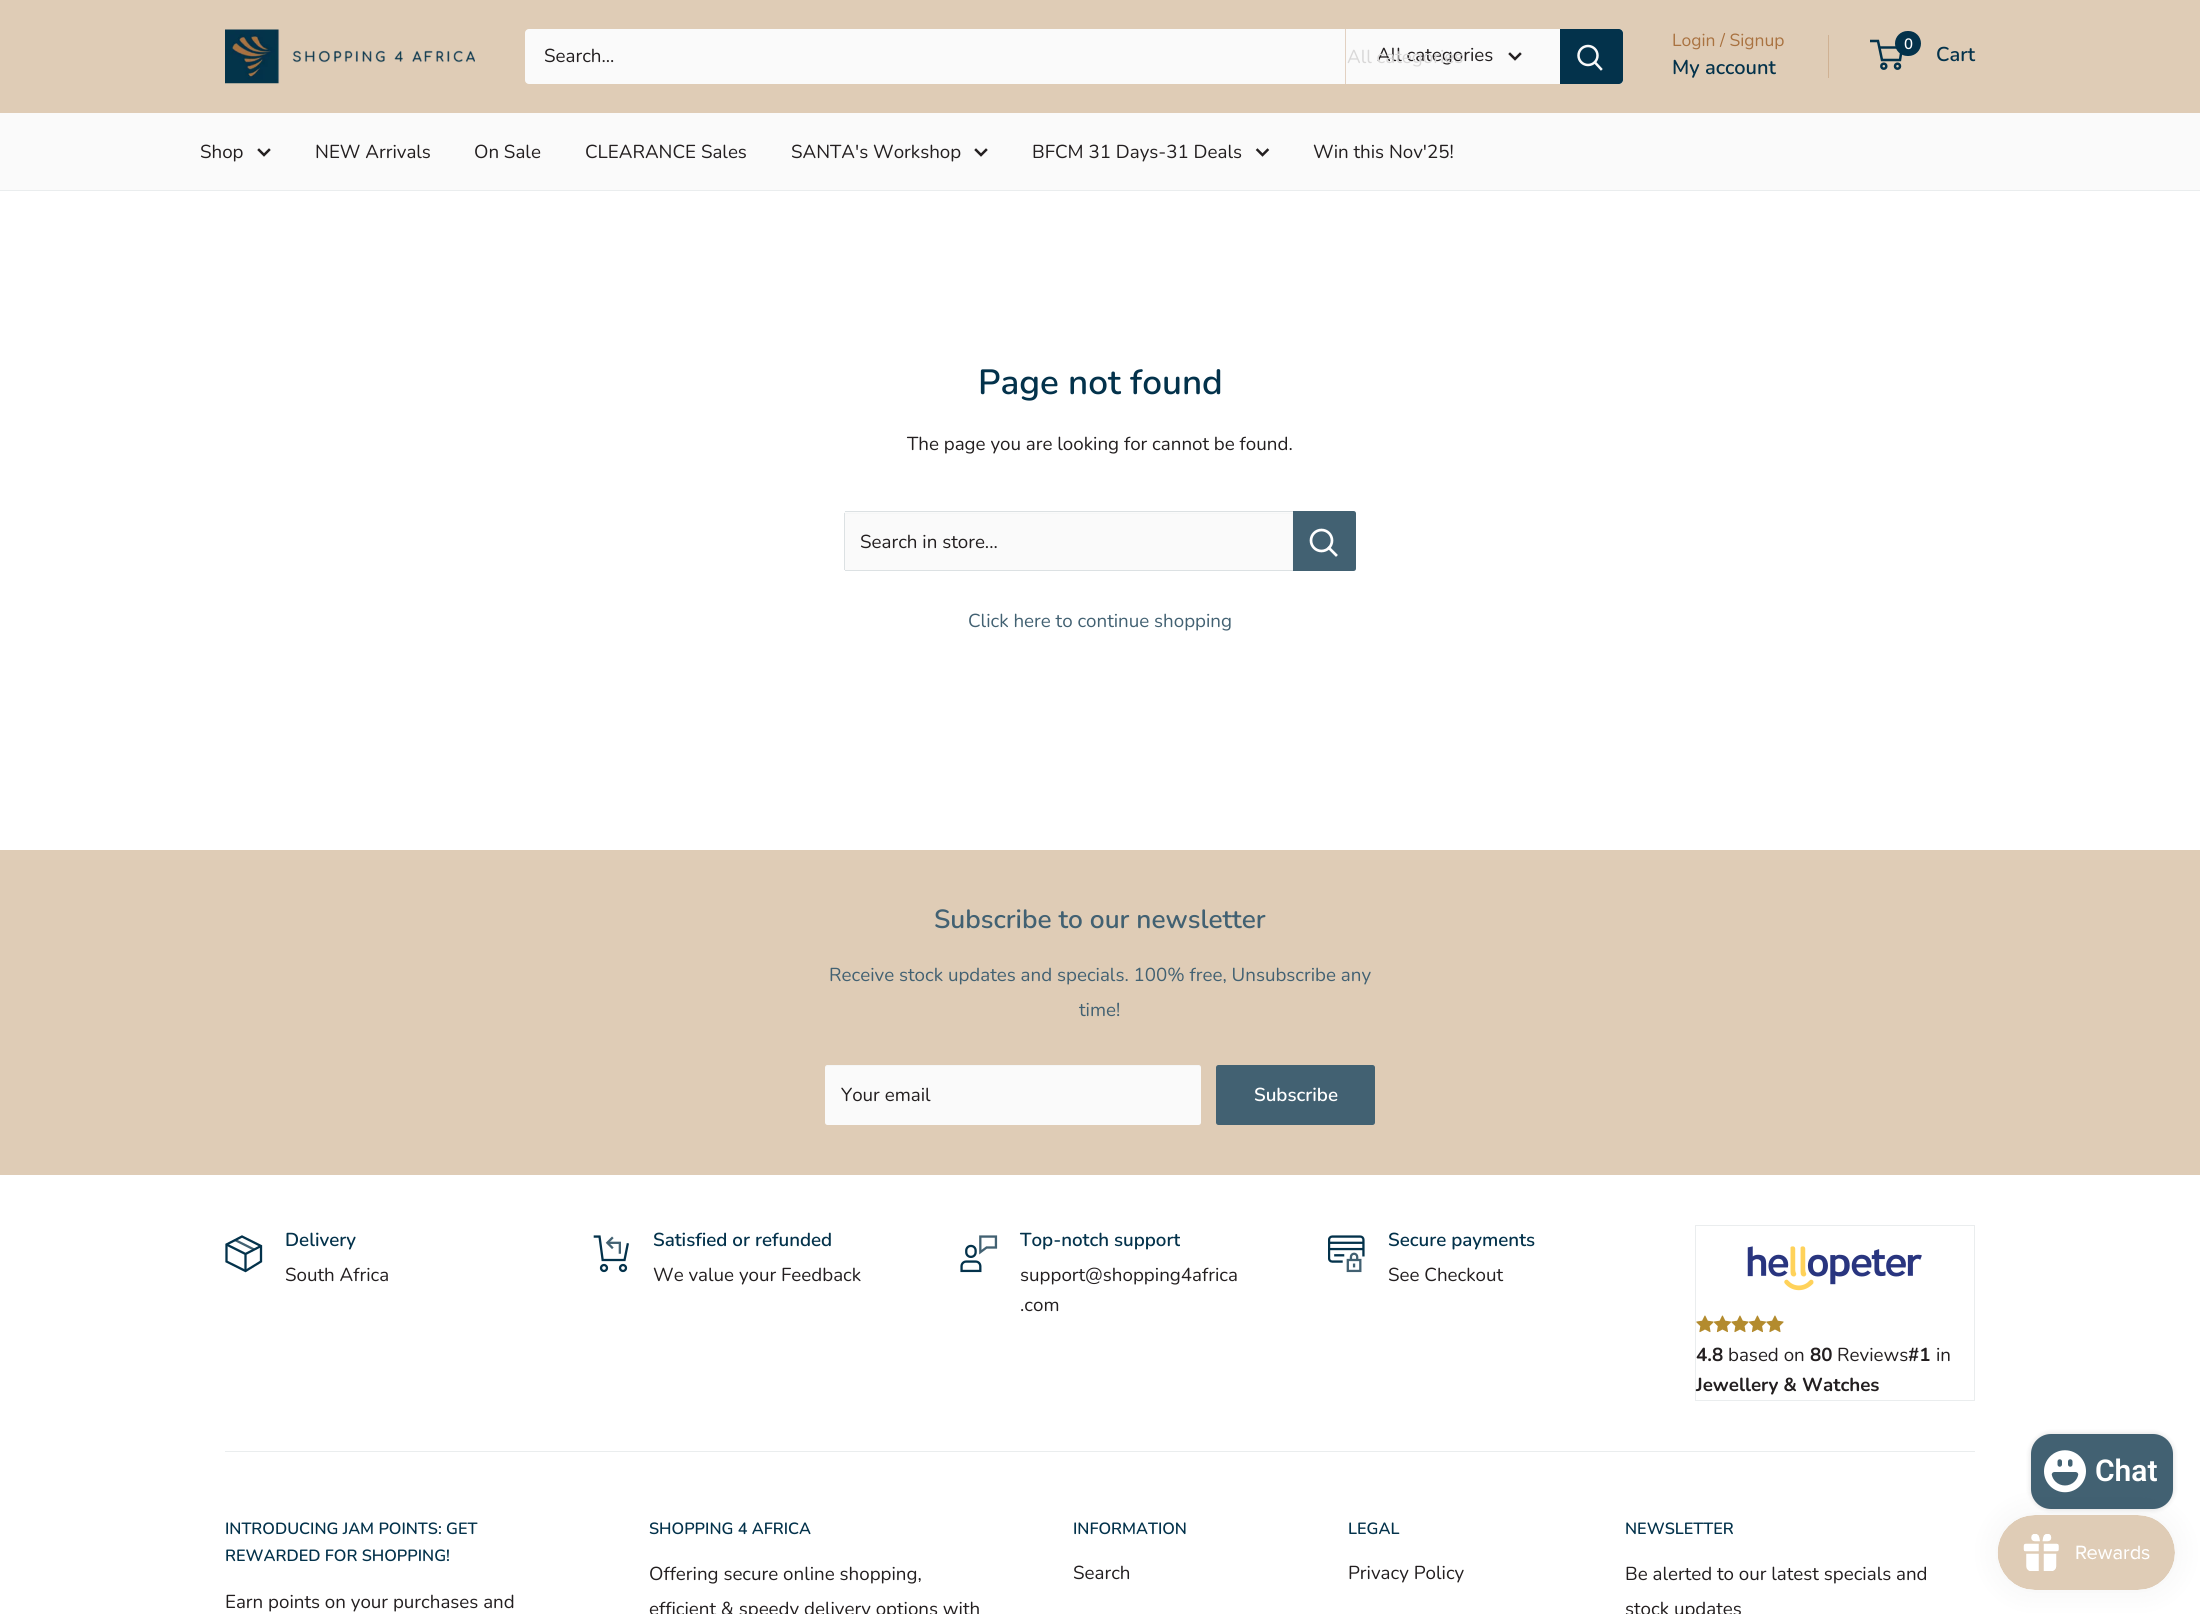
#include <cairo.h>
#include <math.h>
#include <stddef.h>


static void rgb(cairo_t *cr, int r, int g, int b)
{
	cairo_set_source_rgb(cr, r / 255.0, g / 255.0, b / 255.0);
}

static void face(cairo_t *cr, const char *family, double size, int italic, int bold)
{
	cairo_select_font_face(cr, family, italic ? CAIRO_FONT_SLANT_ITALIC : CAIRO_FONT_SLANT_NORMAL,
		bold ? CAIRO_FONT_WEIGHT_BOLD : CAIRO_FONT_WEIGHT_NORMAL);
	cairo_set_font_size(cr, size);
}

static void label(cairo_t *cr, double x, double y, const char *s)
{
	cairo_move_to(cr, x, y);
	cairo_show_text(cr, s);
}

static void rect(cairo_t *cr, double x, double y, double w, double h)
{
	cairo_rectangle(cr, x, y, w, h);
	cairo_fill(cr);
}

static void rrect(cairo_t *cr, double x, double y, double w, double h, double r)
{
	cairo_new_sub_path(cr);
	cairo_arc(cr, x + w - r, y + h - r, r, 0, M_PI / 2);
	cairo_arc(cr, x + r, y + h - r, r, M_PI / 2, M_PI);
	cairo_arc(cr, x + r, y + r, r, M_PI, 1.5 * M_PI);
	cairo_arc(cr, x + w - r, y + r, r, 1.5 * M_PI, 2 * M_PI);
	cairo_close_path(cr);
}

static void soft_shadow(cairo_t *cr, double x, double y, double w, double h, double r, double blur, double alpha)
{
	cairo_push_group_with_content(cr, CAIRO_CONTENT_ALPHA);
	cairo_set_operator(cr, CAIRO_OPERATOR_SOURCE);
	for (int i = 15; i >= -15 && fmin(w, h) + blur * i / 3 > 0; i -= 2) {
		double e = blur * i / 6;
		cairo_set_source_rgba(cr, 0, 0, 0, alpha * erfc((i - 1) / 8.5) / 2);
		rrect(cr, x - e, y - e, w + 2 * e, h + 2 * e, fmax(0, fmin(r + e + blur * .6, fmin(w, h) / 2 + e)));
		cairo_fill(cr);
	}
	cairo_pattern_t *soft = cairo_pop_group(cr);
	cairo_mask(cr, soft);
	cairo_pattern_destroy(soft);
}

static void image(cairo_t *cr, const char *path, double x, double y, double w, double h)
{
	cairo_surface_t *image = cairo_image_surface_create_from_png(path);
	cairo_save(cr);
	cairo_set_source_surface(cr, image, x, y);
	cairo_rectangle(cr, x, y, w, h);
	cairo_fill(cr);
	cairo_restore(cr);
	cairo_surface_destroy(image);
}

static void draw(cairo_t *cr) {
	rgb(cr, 255, 255, 255);
	cairo_paint(cr);
	rgb(cr, 223, 204, 182);
	rect(cr, 0, 0, 2200, 113);
	image(cr, "image0.png", 225, 29, 250, 55);
	rgb(cr, 250, 250, 250);
	rrect(cr, 525, 29, 1098, 55, 4);
	cairo_fill(cr);
	face(cr, "Nunito", 18.75, 0, 0);
	rgb(cr, 35, 31, 32);
	label(cr, 544, 62, "Search...");
	rgb(cr, 226, 209, 194);
	rect(cr, 1345, 29, 1, 55);
	rgb(cr, 35, 31, 32);
	label(cr, 1377, 61, "All categories");
	cairo_new_path(cr);
	cairo_move_to(cr, 1520, 54);
	cairo_line_to(cr, 1515, 59);
	cairo_line_to(cr, 1510, 54);
	cairo_set_line_width(cr, 2.5);
	cairo_set_line_cap(cr, CAIRO_LINE_CAP_SQUARE);
	cairo_stroke(cr);
	rgb(cr, 217, 216, 216);
	label(cr, 1347, 63, "All categories");
	rgb(cr, 3, 50, 75);
	cairo_new_path(cr);
	cairo_move_to(cr, 1560, 29);
	cairo_line_to(cr, 1619, 29);
	cairo_curve_to(cr, 1621, 29, 1623, 31, 1623, 33);
	cairo_line_to(cr, 1623, 80);
	cairo_curve_to(cr, 1623, 82, 1621, 84, 1619, 84);
	cairo_line_to(cr, 1560, 84);
	cairo_close_path(cr);
	cairo_fill(cr);
	cairo_new_path(cr);
	cairo_move_to(cr, 1601, 69);
	cairo_line_to(cr, 1595, 62.5);
	rgb(cr, 250, 250, 250);
	cairo_stroke(cr);
	cairo_arc(cr, 1588, 55.5, 9.5, 0, 2 * M_PI);
	cairo_set_line_cap(cr, CAIRO_LINE_CAP_BUTT);
	cairo_stroke(cr);
	face(cr, "Nunito", 17.5, 0, 0);
	rgb(cr, 169, 114, 64);
	label(cr, 1672, 46, "Login / Signup");
	rgb(cr, 207, 177, 147);
	rect(cr, 1828, 35, 1, 43);
	face(cr, "Nunito SemiBold", 20, 0, 0);
	rgb(cr, 3, 50, 75);
	label(cr, 1672, 74, "My account");
	cairo_new_path(cr);
	cairo_arc(cr, 1883.8, 66.2, 2.5, 0, 2 * M_PI);
	cairo_stroke(cr);
	cairo_arc(cr, 1897.5, 66.2, 2.5, 0, 2 * M_PI);
	cairo_stroke(cr);
	cairo_new_path(cr);
	cairo_move_to(cr, 1879, 47.5);
	cairo_line_to(cr, 1902, 47.5);
	cairo_line_to(cr, 1900, 60);
	cairo_line_to(cr, 1882, 60);
	cairo_line_to(cr, 1878, 41);
	cairo_line_to(cr, 1870, 41);
	cairo_stroke(cr);
	rrect(cr, 1895, 31, 26, 25, 12.5);
	cairo_fill(cr);
	face(cr, "Nunito SemiBold", 15, 0, 0);
	rgb(cr, 255, 255, 255);
	label(cr, 1904, 49, "0");
	face(cr, "Nunito SemiBold", 20, 0, 0);
	rgb(cr, 3, 50, 75);
	label(cr, 1936, 61, "Cart");
	rgb(cr, 250, 250, 250);
	rect(cr, 0, 113, 2200, 77);
	rgb(cr, 234, 237, 238);
	rect(cr, 0, 190, 2200, 1);
	face(cr, "Nunito", 18.75, 0, 0);
	rgb(cr, 35, 31, 32);
	label(cr, 200, 158, "Shop");
	cairo_new_path(cr);
	cairo_move_to(cr, 269, 150);
	cairo_line_to(cr, 264, 155);
	cairo_line_to(cr, 259, 150);
	cairo_set_line_cap(cr, CAIRO_LINE_CAP_SQUARE);
	cairo_stroke(cr);
	label(cr, 315, 158, "NEW Arrivals");
	label(cr, 474, 158, "On Sale");
	label(cr, 585, 158, "CLEARANCE Sales");
	label(cr, 791, 158, "SANTA's Workshop");
	cairo_new_path(cr);
	cairo_move_to(cr, 986, 150);
	cairo_line_to(cr, 981, 155);
	cairo_line_to(cr, 976, 150);
	cairo_stroke(cr);
	label(cr, 1032, 158, "BFCM 31 Days-31 Deals");
	cairo_new_path(cr);
	cairo_move_to(cr, 1267.5, 150);
	cairo_line_to(cr, 1262.5, 155);
	cairo_line_to(cr, 1257.5, 150);
	cairo_stroke(cr);
	label(cr, 1313, 158, "Win this Nov'25!");
	face(cr, "Nunito SemiBold", 35, 0, 0);
	rgb(cr, 3, 50, 75);
	label(cr, 978, 394, "Page not found");
	face(cr, "Nunito", 18.75, 0, 0);
	rgb(cr, 35, 31, 32);
	label(cr, 907, 450, "The page you are looking for cannot be found.");
	rgb(cr, 250, 250, 250);
	cairo_new_path(cr);
	cairo_move_to(cr, 846.5, 511);
	cairo_line_to(cr, 1293, 511);
	cairo_line_to(cr, 1293, 571);
	cairo_line_to(cr, 846.5, 571);
	cairo_curve_to(cr, 845, 571, 844, 570, 844, 568.5);
	cairo_line_to(cr, 844, 513.5);
	cairo_curve_to(cr, 844, 512, 845, 511, 846.5, 511);
	cairo_close_path(cr);
	cairo_fill(cr);
	rgb(cr, 246, 247, 247);
	cairo_new_path(cr);
	cairo_move_to(cr, 846, 514);
	cairo_line_to(cr, 1292, 514);
	cairo_line_to(cr, 1292, 570);
	cairo_line_to(cr, 1293, 570);
	cairo_line_to(cr, 1293, 513);
	cairo_line_to(cr, 846, 513);
	cairo_line_to(cr, 845, 514);
	cairo_line_to(cr, 845, 515);
	cairo_close_path(cr);
	cairo_fill(cr);
	rgb(cr, 220, 225, 227);
	rect(cr, 845, 511, 448, 1);
	rect(cr, 845, 570, 448, 1);
	rect(cr, 844, 513, 1, 57);
	rgb(cr, 35, 31, 32);
	label(cr, 860, 548, "Search in store...");
	rgb(cr, 66, 97, 114);
	cairo_new_path(cr);
	cairo_move_to(cr, 1293, 511);
	cairo_line_to(cr, 1353.5, 511);
	cairo_curve_to(cr, 1355, 511, 1356, 512, 1356, 513.5);
	cairo_line_to(cr, 1356, 568.5);
	cairo_curve_to(cr, 1356, 570, 1355, 571, 1353.5, 571);
	cairo_line_to(cr, 1293, 571);
	cairo_close_path(cr);
	cairo_fill(cr);
	cairo_new_path(cr);
	cairo_move_to(cr, 1336, 555);
	cairo_line_to(cr, 1329, 548);
	rgb(cr, 255, 255, 255);
	cairo_set_line_width(cr, 2.7);
	cairo_stroke(cr);
	cairo_arc(cr, 1321.5, 540.5, 10.5, 0, 2 * M_PI);
	cairo_set_line_cap(cr, CAIRO_LINE_CAP_BUTT);
	cairo_stroke(cr);
	rgb(cr, 66, 97, 114);
	label(cr, 968, 627, "Click here to continue shopping");
	rgb(cr, 223, 204, 182);
	rect(cr, 0, 850, 2200, 325);
	face(cr, "Nunito SemiBold", 26.25, 0, 0);
	rgb(cr, 66, 97, 114);
	label(cr, 934, 928, "Subscribe to our newsletter");
	face(cr, "Nunito", 18.75, 0, 0);
	label(cr, 829, 981, "Receive stock updates and specials. 100% free, Unsubscribe any");
	label(cr, 1079, 1016, "time!");
	rgb(cr, 250, 250, 250);
	rrect(cr, 825, 1065, 376, 60, 2.5);
	cairo_fill(cr);
	cairo_set_source_rgba(cr, 0.918, 0.929, 0.933, 0.25);
	cairo_new_path(cr);
	cairo_move_to(cr, 828, 1066);
	cairo_line_to(cr, 1199, 1066);
	cairo_curve_to(cr, 1200, 1066, 1201, 1067, 1201, 1069);
	cairo_line_to(cr, 1201, 1068);
	cairo_curve_to(cr, 1201, 1066, 1200, 1065, 1198, 1065);
	cairo_line_to(cr, 828, 1065);
	cairo_curve_to(cr, 826, 1065, 825, 1066, 825, 1068);
	cairo_line_to(cr, 825, 1069);
	cairo_curve_to(cr, 825, 1067, 826, 1066, 828, 1066);
	cairo_close_path(cr);
	cairo_fill(cr);
	rgb(cr, 35, 31, 32);
	label(cr, 841, 1101, "Your email");
	rgb(cr, 66, 97, 114);
	rrect(cr, 1216, 1065, 159, 60, 2.5);
	cairo_fill(cr);
	face(cr, "Nunito SemiBold", 18.75, 0, 0);
	rgb(cr, 255, 255, 255);
	label(cr, 1254, 1101, "Subscribe");
	cairo_new_path(cr);
	cairo_move_to(cr, 235, 1240);
	cairo_line_to(cr, 254, 1249.5);
	rgb(cr, 66, 97, 114);
	cairo_set_line_width(cr, 2.3);
	cairo_stroke(cr);
	cairo_new_path(cr);
	cairo_move_to(cr, 261, 1246);
	cairo_line_to(cr, 245.5, 1254);
	cairo_line_to(cr, 226.5, 1244.5);
	cairo_move_to(cr, 245.5, 1254);
	cairo_line_to(cr, 245.5, 1271);
	rgb(cr, 3, 50, 75);
	cairo_stroke(cr);
	cairo_new_path(cr);
	cairo_move_to(cr, 261, 1246);
	cairo_line_to(cr, 261, 1261.5);
	cairo_line_to(cr, 245.5, 1271);
	cairo_line_to(cr, 226.5, 1261.5);
	cairo_line_to(cr, 226.5, 1244.5);
	cairo_line_to(cr, 242, 1236.5);
	cairo_close_path(cr);
	cairo_set_line_cap(cr, CAIRO_LINE_CAP_SQUARE);
	cairo_stroke(cr);
	label(cr, 285, 1246, "Delivery");
	face(cr, "Nunito", 18.75, 0, 0);
	rgb(cr, 35, 31, 32);
	label(cr, 285, 1281, "South Africa");
	image(cr, "image1.png", 593, 1235, 36, 38);
	face(cr, "Nunito SemiBold", 18.75, 0, 0);
	rgb(cr, 3, 50, 75);
	label(cr, 653, 1246, "Satisfied or refunded");
	face(cr, "Nunito", 18.75, 0, 0);
	rgb(cr, 35, 31, 32);
	label(cr, 653, 1281, "We value your Feedback");
	image(cr, "image2.png", 960, 1235, 38, 38);
	face(cr, "Nunito SemiBold", 18.75, 0, 0);
	rgb(cr, 3, 50, 75);
	label(cr, 1020, 1246, "Top-notch support");
	face(cr, "Nunito", 18.75, 0, 0);
	rgb(cr, 35, 31, 32);
	label(cr, 1020, 1281, "support@shopping4africa");
	label(cr, 1020, 1311, ".com");
	image(cr, "image3.png", 1328, 1235, 37, 38);
	face(cr, "Nunito SemiBold", 18.75, 0, 0);
	rgb(cr, 3, 50, 75);
	label(cr, 1388, 1246, "Secure payments");
	face(cr, "Nunito", 18.75, 0, 0);
	rgb(cr, 35, 31, 32);
	label(cr, 1388, 1281, "See Checkout");
	cairo_rectangle(cr, 1695.5, 1225.5, 279, 175);
	rgb(cr, 234, 237, 238);
	cairo_set_line_width(cr, 1);
	cairo_set_line_cap(cr, CAIRO_LINE_CAP_BUTT);
	cairo_stroke(cr);
	image(cr, "image4.png", 1747, 1246, 175, 45);
	image(cr, "image5.png", 1696, 1315, 18, 18);
	image(cr, "image6.png", 1713, 1315, 19, 18);
	image(cr, "image7.png", 1731, 1315, 18, 18);
	image(cr, "image6.png", 1748, 1315, 19, 18);
	image(cr, "image7.png", 1766, 1315, 18, 18);
	face(cr, "Nunito", 18.75, 0, 1);
	rgb(cr, 35, 31, 32);
	label(cr, 1696, 1361, "4.8");
	face(cr, "Nunito", 18.75, 0, 0);
	label(cr, 1728, 1361, "based on");
	face(cr, "Nunito", 18.75, 0, 1);
	label(cr, 1810, 1361, "80");
	face(cr, "Nunito", 18.75, 0, 0);
	label(cr, 1837, 1361, "Reviews");
	face(cr, "Nunito", 18.75, 0, 1);
	label(cr, 1908, 1361, "#1");
	face(cr, "Nunito", 18.75, 0, 0);
	label(cr, 1936, 1361, "in");
	face(cr, "Nunito", 18.75, 0, 1);
	label(cr, 1696, 1391, "Jewellery & Watches");
	rgb(cr, 0, 0, 0);
	soft_shadow(cr, 2031, 1434, 142, 75, 20, 3, 0.15);
	rgb(cr, 66, 97, 114);
	rrect(cr, 2031, 1434, 142, 75, 20);
	cairo_fill(cr);
	image(cr, "image8.png", 2044, 1450, 42, 43);
	face(cr, "Roboto SemiBold", 30, 0, 0);
	rgb(cr, 255, 255, 255);
	label(cr, 2095, 1481, "Chat");
	rgb(cr, 234, 237, 238);
	rect(cr, 225, 1451, 1750, 1);
	face(cr, "Nunito SemiBold", 16.25, 0, 0);
	rgb(cr, 3, 50, 75);
	label(cr, 225, 1534, "INTRODUCING JAM POINTS: GET");
	label(cr, 225, 1561, "REWARDED FOR SHOPPING!");
	face(cr, "Nunito", 18.75, 0, 0);
	rgb(cr, 35, 31, 32);
	label(cr, 225, 1608, "Earn points on your purchases and");
	face(cr, "Nunito SemiBold", 16.25, 0, 0);
	rgb(cr, 3, 50, 75);
	label(cr, 649, 1534, "SHOPPING 4 AFRICA");
	face(cr, "Nunito", 18.75, 0, 0);
	rgb(cr, 35, 31, 32);
	label(cr, 649, 1580, "Offering secure online shopping,");
	label(cr, 649, 1615, "efficient & speedy delivery options with");
	face(cr, "Nunito SemiBold", 16.25, 0, 0);
	rgb(cr, 3, 50, 75);
	label(cr, 1073, 1534, "INFORMATION");
	face(cr, "Nunito", 18.75, 0, 0);
	rgb(cr, 35, 31, 32);
	label(cr, 1073, 1579, "Search");
	face(cr, "Nunito SemiBold", 16.25, 0, 0);
	rgb(cr, 3, 50, 75);
	label(cr, 1348, 1534, "LEGAL");
	face(cr, "Nunito", 18.75, 0, 0);
	rgb(cr, 35, 31, 32);
	label(cr, 1348, 1579, "Privacy Policy");
	face(cr, "Nunito SemiBold", 16.25, 0, 0);
	rgb(cr, 3, 50, 75);
	label(cr, 1625, 1534, "NEWSLETTER");
	face(cr, "Nunito", 18.75, 0, 0);
	rgb(cr, 35, 31, 32);
	label(cr, 1625, 1580, "Be alerted to our latest specials and");
	label(cr, 1625, 1615, "stock updates");
	rgb(cr, 0, 0, 0);
	soft_shadow(cr, 1998, 1515, 177, 75, 37.5, 15.5, 0.05);
	image(cr, "image9.png", 1997, 1515, 178, 75);
}

int main(void) {
	cairo_surface_t *surface = cairo_image_surface_create(CAIRO_FORMAT_RGB24, 2200, 1614);
	cairo_t *cr = cairo_create(surface);
	cairo_font_options_t *options = cairo_font_options_create();
	cairo_font_options_set_hint_metrics(options, CAIRO_HINT_METRICS_OFF);
	cairo_font_options_set_hint_style(options, CAIRO_HINT_STYLE_NONE);
	cairo_set_font_options(cr, options);
	cairo_set_miter_limit(cr, 4);
	draw(cr);
	cairo_surface_write_to_png(surface, "render.png");
	cairo_font_options_destroy(options);
	cairo_destroy(cr);
	cairo_surface_destroy(surface);
	return 0;
}
